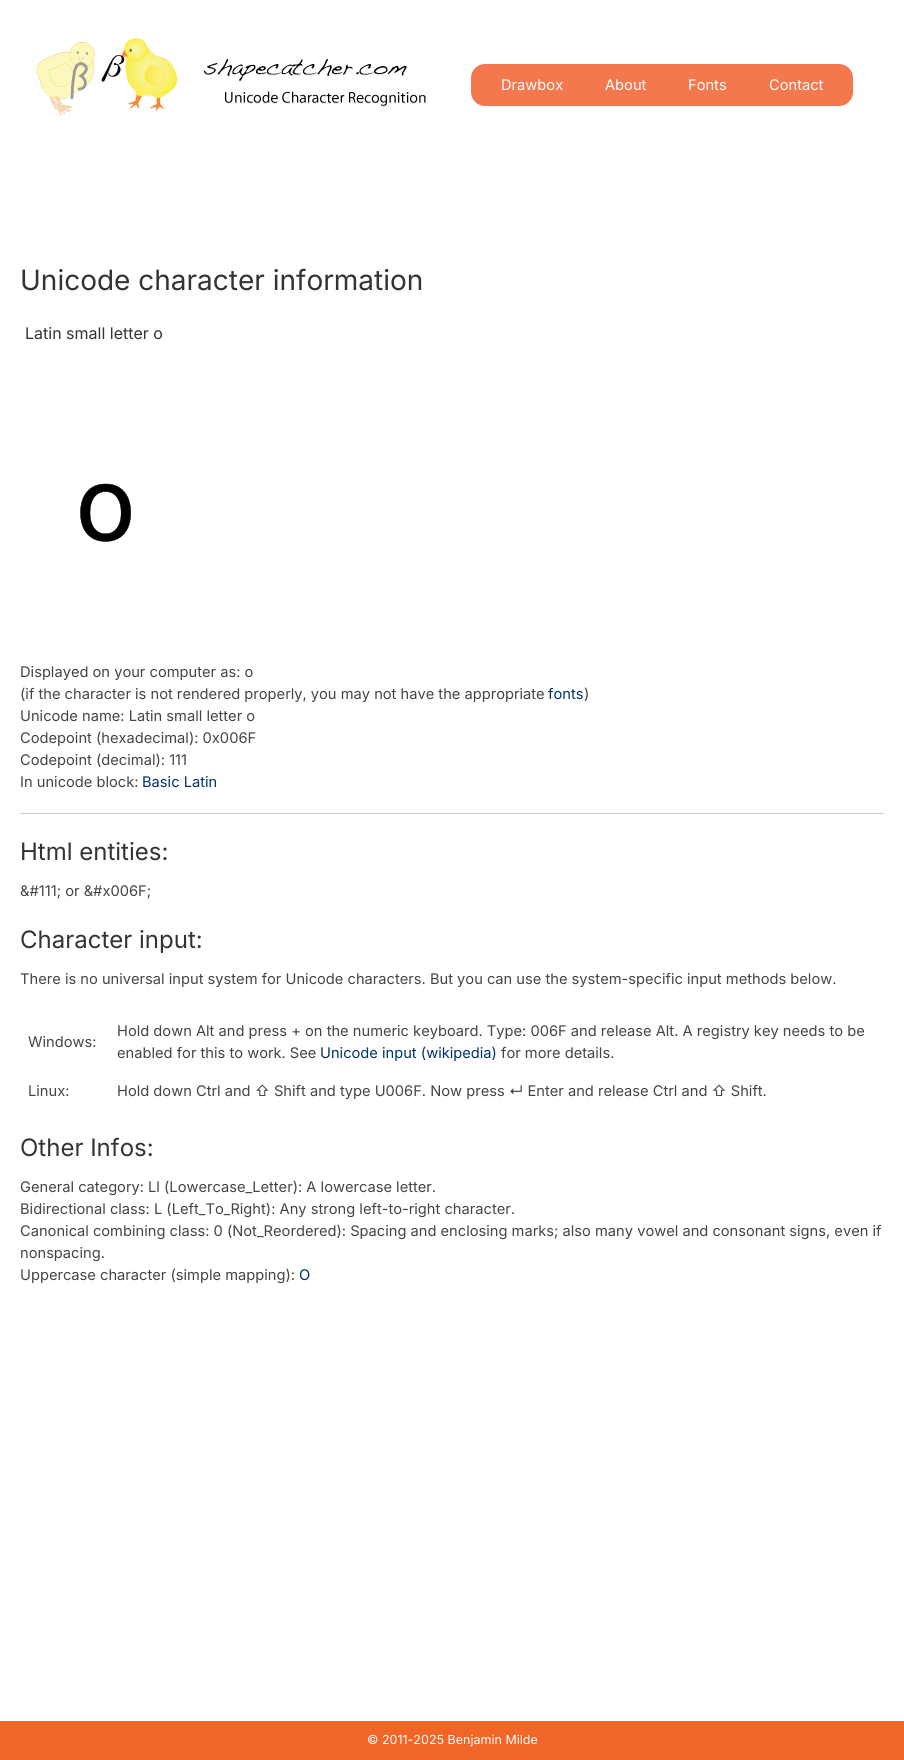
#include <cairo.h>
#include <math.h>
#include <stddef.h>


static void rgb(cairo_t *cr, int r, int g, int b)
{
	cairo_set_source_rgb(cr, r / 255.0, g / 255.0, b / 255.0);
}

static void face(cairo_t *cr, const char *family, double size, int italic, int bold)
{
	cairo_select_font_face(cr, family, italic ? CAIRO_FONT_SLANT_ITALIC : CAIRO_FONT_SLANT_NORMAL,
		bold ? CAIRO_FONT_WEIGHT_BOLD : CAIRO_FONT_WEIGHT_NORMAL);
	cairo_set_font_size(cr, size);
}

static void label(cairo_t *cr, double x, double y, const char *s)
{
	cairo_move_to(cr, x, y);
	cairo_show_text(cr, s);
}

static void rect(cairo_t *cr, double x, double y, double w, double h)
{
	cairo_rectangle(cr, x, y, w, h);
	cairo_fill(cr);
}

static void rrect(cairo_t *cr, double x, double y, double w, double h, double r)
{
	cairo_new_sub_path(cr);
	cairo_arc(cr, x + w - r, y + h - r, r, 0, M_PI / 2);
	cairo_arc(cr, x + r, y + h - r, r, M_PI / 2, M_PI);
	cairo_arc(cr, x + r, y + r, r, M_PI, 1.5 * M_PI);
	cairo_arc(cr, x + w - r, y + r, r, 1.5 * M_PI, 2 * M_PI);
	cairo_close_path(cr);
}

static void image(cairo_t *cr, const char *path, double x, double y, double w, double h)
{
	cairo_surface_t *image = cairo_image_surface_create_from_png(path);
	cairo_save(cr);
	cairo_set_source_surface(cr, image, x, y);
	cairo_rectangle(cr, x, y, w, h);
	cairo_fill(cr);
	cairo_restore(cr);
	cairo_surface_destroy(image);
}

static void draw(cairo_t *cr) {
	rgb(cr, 255, 255, 255);
	cairo_paint(cr);
	image(cr, "image0.png", 36, 38, 390, 78);
	rgb(cr, 244, 120, 77);
	rrect(cr, 471, 64, 382, 42, 14);
	cairo_fill(cr);
	face(cr, "Inter", 14.67, 0, 0);
	rgb(cr, 255, 255, 255);
	label(cr, 501, 90, "Drawbox");
	label(cr, 605, 90, "About");
	label(cr, 688, 90, "Fonts");
	label(cr, 769, 90, "Contact");
	face(cr, "Inter", 28, 0, 0);
	rgb(cr, 51, 51, 51);
	label(cr, 20, 290, "Unicode character information");
	face(cr, "Inter", 16, 0, 0);
	label(cr, 25, 339, "Latin small letter o");
	image(cr, "image1.png", 80, 483, 51, 59);
	face(cr, "Inter", 14.67, 0, 0);
	rgb(cr, 68, 68, 68);
	label(cr, 20, 677, "Displayed on your computer as: o");
	label(cr, 20, 699, "(if the character is not rendered properly, you may not have the appropriate");
	rgb(cr, 0, 51, 102);
	label(cr, 548, 699, "fonts");
	rgb(cr, 68, 68, 68);
	label(cr, 584, 699, ")");
	label(cr, 20, 721, "Unicode name: Latin small letter o");
	label(cr, 20, 743, "Codepoint (hexadecimal): 0x006F");
	label(cr, 20, 765, "Codepoint (decimal): 111");
	label(cr, 20, 787, "In unicode block:");
	rgb(cr, 0, 51, 102);
	label(cr, 142, 787, "Basic Latin");
	rgb(cr, 204, 204, 204);
	rect(cr, 20, 813, 864, 1);
	face(cr, "Inter", 24, 0, 0);
	rgb(cr, 51, 51, 51);
	label(cr, 20, 860, "Html entities:");
	face(cr, "Inter", 14.67, 0, 0);
	rgb(cr, 68, 68, 68);
	label(cr, 20, 896, "&#111; or &#x006F;");
	face(cr, "Inter", 24, 0, 0);
	rgb(cr, 51, 51, 51);
	label(cr, 20, 948, "Character input:");
	face(cr, "Inter", 14.67, 0, 0);
	rgb(cr, 68, 68, 68);
	label(cr, 20, 984, "There is no universal input system for Unicode characters. But you can use the system-specific input methods below.");
	label(cr, 28, 1047, "Windows:");
	label(cr, 117, 1036, "Hold down Alt and press + on the numeric keyboard. Type: 006F and release Alt. A registry key needs to be");
	label(cr, 117, 1058, "enabled for this to work. See");
	rgb(cr, 0, 51, 102);
	label(cr, 320, 1058, "Unicode input (wikipedia)");
	rgb(cr, 68, 68, 68);
	label(cr, 501, 1058, "for more details.");
	label(cr, 28, 1096, "Linux:");
	label(cr, 117, 1096, "Hold down Ctrl and ⇧ Shift and type U006F. Now press ↵ Enter and release Ctrl and ⇧ Shift.");
	face(cr, "Inter", 24, 0, 0);
	rgb(cr, 51, 51, 51);
	label(cr, 20, 1156, "Other Infos:");
	face(cr, "Inter", 14.67, 0, 0);
	rgb(cr, 68, 68, 68);
	label(cr, 20, 1192, "General category: Ll (Lowercase_Letter): A lowercase letter.");
	label(cr, 20, 1214, "Bidirectional class: L (Left_To_Right): Any strong left-to-right character.");
	label(cr, 20, 1236, "Canonical combining class: 0 (Not_Reordered): Spacing and enclosing marks; also many vowel and consonant signs, even if");
	label(cr, 20, 1258, "nonspacing.");
	label(cr, 20, 1280, "Uppercase character (simple mapping):");
	rgb(cr, 0, 51, 102);
	label(cr, 299, 1280, "O");
	rgb(cr, 241, 101, 41);
	rect(cr, 0, 1721, 904, 39);
	face(cr, "Inter", 12.5, 0, 0);
	rgb(cr, 255, 255, 255);
	label(cr, 367, 1744, "© 2011-2025 Benjamin Milde");
}

int main(void) {
	cairo_surface_t *surface = cairo_image_surface_create(CAIRO_FORMAT_RGB24, 904, 1760);
	cairo_t *cr = cairo_create(surface);
	cairo_font_options_t *options = cairo_font_options_create();
	cairo_font_options_set_hint_metrics(options, CAIRO_HINT_METRICS_OFF);
	cairo_font_options_set_hint_style(options, CAIRO_HINT_STYLE_NONE);
	cairo_set_font_options(cr, options);
	cairo_set_miter_limit(cr, 4);
	draw(cr);
	cairo_surface_write_to_png(surface, "render.png");
	cairo_font_options_destroy(options);
	cairo_destroy(cr);
	cairo_surface_destroy(surface);
	return 0;
}
